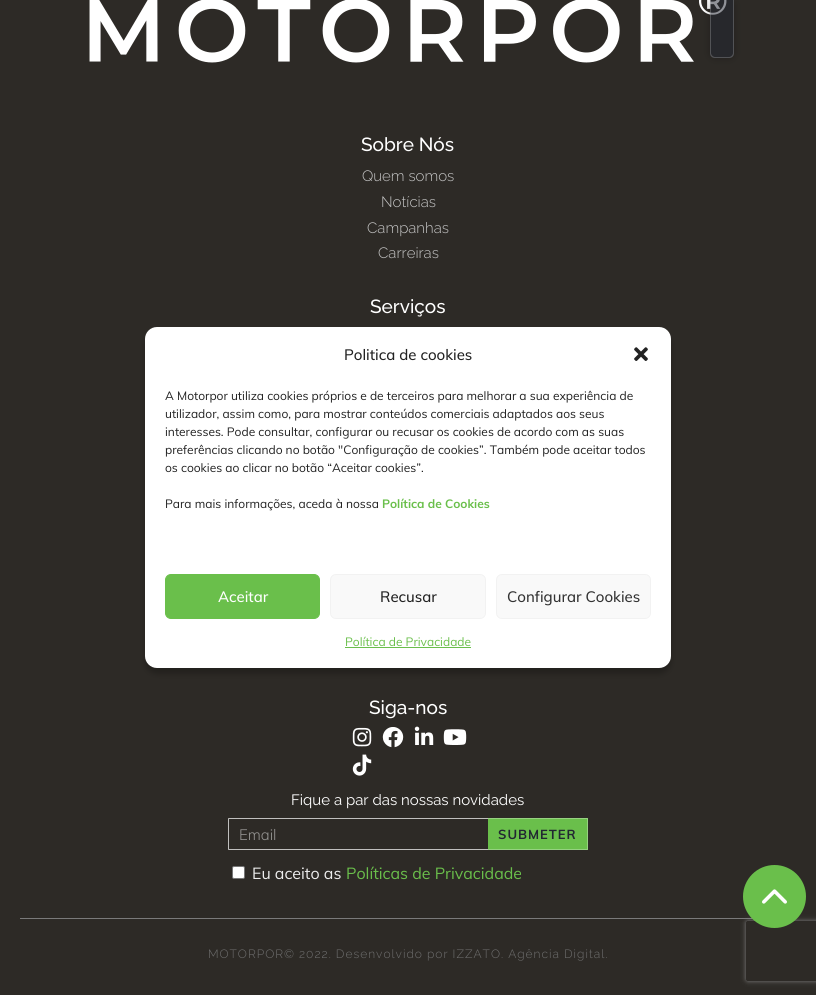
#include <cairo.h>
#include <math.h>
#include <stddef.h>


static void rgb(cairo_t *cr, int r, int g, int b)
{
	cairo_set_source_rgb(cr, r / 255.0, g / 255.0, b / 255.0);
}

static void face(cairo_t *cr, const char *family, double size, int italic, int bold)
{
	cairo_select_font_face(cr, family, italic ? CAIRO_FONT_SLANT_ITALIC : CAIRO_FONT_SLANT_NORMAL,
		bold ? CAIRO_FONT_WEIGHT_BOLD : CAIRO_FONT_WEIGHT_NORMAL);
	cairo_set_font_size(cr, size);
}

static void label(cairo_t *cr, double x, double y, const char *s)
{
	cairo_move_to(cr, x, y);
	cairo_show_text(cr, s);
}

static void tracked(cairo_t *cr, double x, double y, const char *s, double letter, double word)
{
	cairo_move_to(cr, x, y);
	while (*s) {
		char ch[5] = {0};
		int n = 0;
		do ch[n++] = *s++; while ((*s & 0xC0) == 0x80);
		cairo_show_text(cr, ch);
		cairo_rel_move_to(cr, letter + word * (*ch == ' '), 0);
	}
}

static void rect(cairo_t *cr, double x, double y, double w, double h)
{
	cairo_rectangle(cr, x, y, w, h);
	cairo_fill(cr);
}

static void rrect(cairo_t *cr, double x, double y, double w, double h, double r)
{
	cairo_new_sub_path(cr);
	cairo_arc(cr, x + w - r, y + h - r, r, 0, M_PI / 2);
	cairo_arc(cr, x + r, y + h - r, r, M_PI / 2, M_PI);
	cairo_arc(cr, x + r, y + r, r, M_PI, 1.5 * M_PI);
	cairo_arc(cr, x + w - r, y + r, r, 1.5 * M_PI, 2 * M_PI);
	cairo_close_path(cr);
}

static void soft_shadow(cairo_t *cr, double x, double y, double w, double h, double r, double blur, double alpha)
{
	cairo_push_group_with_content(cr, CAIRO_CONTENT_ALPHA);
	cairo_set_operator(cr, CAIRO_OPERATOR_SOURCE);
	for (int i = 15; i >= -15 && fmin(w, h) + blur * i / 3 > 0; i -= 2) {
		double e = blur * i / 6;
		cairo_set_source_rgba(cr, 0, 0, 0, alpha * erfc((i - 1) / 8.5) / 2);
		rrect(cr, x - e, y - e, w + 2 * e, h + 2 * e, fmax(0, fmin(r + e + blur * .6, fmin(w, h) / 2 + e)));
		cairo_fill(cr);
	}
	cairo_pattern_t *soft = cairo_pop_group(cr);
	cairo_mask(cr, soft);
	cairo_pattern_destroy(soft);
}

static void image(cairo_t *cr, const char *path, double x, double y, double w, double h)
{
	cairo_surface_t *image = cairo_image_surface_create_from_png(path);
	cairo_save(cr);
	cairo_set_source_surface(cr, image, x, y);
	cairo_rectangle(cr, x, y, w, h);
	cairo_fill(cr);
	cairo_restore(cr);
	cairo_surface_destroy(image);
}

static void draw(cairo_t *cr) {
	rgb(cr, 45, 42, 38);
	cairo_paint(cr);
	image(cr, "image0.png", 89, 0, 638, 63);
	cairo_save(cr);
	cairo_set_fill_rule(cr, CAIRO_FILL_RULE_EVEN_ODD);
	cairo_new_path(cr);
	cairo_move_to(cr, 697, 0);
	cairo_line_to(cr, 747, 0);
	cairo_line_to(cr, 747, 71);
	cairo_line_to(cr, 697, 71);
	cairo_close_path(cr);
	cairo_move_to(cr, 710, 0);
	cairo_line_to(cr, 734, 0);
	cairo_line_to(cr, 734, 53);
	cairo_curve_to(cr, 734, 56, 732, 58, 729, 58);
	cairo_line_to(cr, 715, 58);
	cairo_curve_to(cr, 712, 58, 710, 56, 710, 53);
	cairo_close_path(cr);
	cairo_clip(cr);
	rgb(cr, 0, 0, 0);
	soft_shadow(cr, 710, 0, 24, 58, 5, 4, 0.25);
	cairo_restore(cr);
	cairo_set_source_rgba(cr, 0.133, 0.153, 0.196, 0.5);
	cairo_new_path(cr);
	cairo_move_to(cr, 710, 0);
	cairo_line_to(cr, 734, 0);
	cairo_line_to(cr, 734, 53);
	cairo_curve_to(cr, 734, 56, 732, 58, 729, 58);
	cairo_line_to(cr, 715, 58);
	cairo_curve_to(cr, 712, 58, 710, 56, 710, 53);
	cairo_close_path(cr);
	cairo_fill(cr);
	cairo_set_source_rgba(cr, 1, 1, 1, 0.2);
	cairo_set_fill_rule(cr, CAIRO_FILL_RULE_EVEN_ODD);
	cairo_new_path(cr);
	cairo_move_to(cr, 710, 0);
	cairo_line_to(cr, 734, 0);
	cairo_line_to(cr, 734, 53);
	cairo_curve_to(cr, 734, 56, 732, 58, 729, 58);
	cairo_line_to(cr, 715, 58);
	cairo_curve_to(cr, 712, 58, 710, 56, 710, 53);
	cairo_close_path(cr);
	cairo_move_to(cr, 711, 0);
	cairo_line_to(cr, 733, 0);
	cairo_line_to(cr, 733, 53);
	cairo_curve_to(cr, 733, 55, 731, 57, 729, 57);
	cairo_line_to(cr, 715, 57);
	cairo_curve_to(cr, 713, 57, 711, 55, 711, 53);
	cairo_close_path(cr);
	cairo_fill(cr);
	face(cr, "Raleway Medium", 19, 0, 0);
	rgb(cr, 255, 255, 255);
	label(cr, 361, 151, "Sobre Nós");
	face(cr, "Raleway Light", 15, 0, 0);
	rgb(cr, 198, 198, 198);
	label(cr, 362, 181, "Quem somos");
	label(cr, 381, 207, "Notícias");
	label(cr, 367, 233, "Campanhas");
	label(cr, 378, 258, "Carreiras");
	face(cr, "Raleway Medium", 19, 0, 0);
	rgb(cr, 255, 255, 255);
	label(cr, 370, 313, "Serviços");
	label(cr, 369, 714, "Siga-nos");
	image(cr, "image1.png", 352, 727, 20, 20);
	image(cr, "image2.png", 382, 727, 22, 21);
	image(cr, "image3.png", 414, 726, 20, 19);
	image(cr, "image4.png", 443, 729, 24, 16);
	image(cr, "image5.png", 352, 754, 20, 22);
	face(cr, "Raleway", 15, 0, 0);
	label(cr, 291, 805, "Fique a par das nossas novidades");
	rgb(cr, 192, 191, 190);
	cairo_set_fill_rule(cr, CAIRO_FILL_RULE_WINDING);
	cairo_new_path(cr);
	cairo_move_to(cr, 228, 818);
	cairo_line_to(cr, 488, 818);
	cairo_line_to(cr, 488, 819);
	cairo_line_to(cr, 229, 819);
	cairo_close_path(cr);
	cairo_fill(cr);
	cairo_new_path(cr);
	cairo_move_to(cr, 488, 850);
	cairo_line_to(cr, 228, 850);
	cairo_line_to(cr, 229, 849);
	cairo_line_to(cr, 488, 849);
	cairo_close_path(cr);
	cairo_fill(cr);
	cairo_set_source_rgba(cr, 1, 1, 1, 0.7);
	cairo_new_path(cr);
	cairo_move_to(cr, 228, 850);
	cairo_line_to(cr, 228, 818);
	cairo_line_to(cr, 229, 819);
	cairo_line_to(cr, 229, 849);
	cairo_close_path(cr);
	cairo_fill(cr);
	face(cr, "Muli Light", 15, 0, 0);
	rgb(cr, 150, 149, 147);
	label(cr, 239, 840, "Email");
	rgb(cr, 106, 191, 75);
	rect(cr, 488, 818, 100, 32);
	rgb(cr, 151, 210, 129);
	cairo_new_path(cr);
	cairo_move_to(cr, 488, 818);
	cairo_line_to(cr, 588, 818);
	cairo_line_to(cr, 587, 819);
	cairo_line_to(cr, 488, 819);
	cairo_close_path(cr);
	cairo_fill(cr);
	cairo_set_source_rgba(cr, 1, 1, 1, 0.3);
	cairo_new_path(cr);
	cairo_move_to(cr, 588, 818);
	cairo_line_to(cr, 588, 850);
	cairo_line_to(cr, 587, 849);
	cairo_line_to(cr, 587, 819);
	cairo_close_path(cr);
	cairo_fill(cr);
	cairo_new_path(cr);
	cairo_move_to(cr, 588, 850);
	cairo_line_to(cr, 488, 850);
	cairo_line_to(cr, 488, 849);
	cairo_line_to(cr, 587, 849);
	cairo_close_path(cr);
	cairo_fill(cr);
	face(cr, "Muli", 13, 0, 1);
	rgb(cr, 34, 39, 50);
	tracked(cr, 498, 839, "SUBMETER", 1, 0);
	rgb(cr, 255, 255, 255);
	rrect(cr, 232.5, 866.5, 12, 12, 1.5);
	cairo_fill_preserve(cr);
	rgb(cr, 118, 118, 118);
	cairo_set_line_width(cr, 1);
	cairo_stroke(cr);
	face(cr, "Muli", 16, 0, 0);
	rgb(cr, 237, 237, 237);
	label(cr, 252, 879, "Eu aceito as");
	rgb(cr, 106, 191, 75);
	label(cr, 346, 879, "Políticas de Privacidade");
	rgb(cr, 122, 122, 122);
	rect(cr, 20, 918, 733, 1);
	cairo_save(cr);
	cairo_set_fill_rule(cr, CAIRO_FILL_RULE_EVEN_ODD);
	cairo_new_path(cr);
	cairo_move_to(cr, 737, 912);
	cairo_line_to(cr, 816, 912);
	cairo_line_to(cr, 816, 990);
	cairo_line_to(cr, 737, 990);
	cairo_close_path(cr);
	cairo_move_to(cr, 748, 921);
	cairo_line_to(cr, 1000, 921);
	cairo_curve_to(cr, 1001, 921, 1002, 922, 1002, 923);
	cairo_line_to(cr, 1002, 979);
	cairo_curve_to(cr, 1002, 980, 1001, 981, 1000, 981);
	cairo_line_to(cr, 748, 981);
	cairo_curve_to(cr, 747, 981, 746, 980, 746, 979);
	cairo_line_to(cr, 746, 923);
	cairo_curve_to(cr, 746, 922, 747, 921, 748, 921);
	cairo_close_path(cr);
	cairo_clip(cr);
	rgb(cr, 128, 128, 128);
	soft_shadow(cr, 746, 921, 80, 60, 2, 2.5, 1);
	cairo_restore(cr);
	rgb(cr, 106, 191, 75);
	cairo_arc(cr, 774.5, 896.5, 31.5, 0, 2 * M_PI);
	cairo_fill(cr);
	image(cr, "image6.png", 762, 889, 25, 15);
	face(cr, "Raleway Light", 12, 0, 0);
	rgb(cr, 111, 111, 111);
	tracked(cr, 208, 958, "MOTORPOR© 2022. Desenvolvido por IZZATO. Agência Digital.", 1, 0);
	rgb(cr, 0, 0, 0);
	soft_shadow(cr, 145, 333, 526, 341, 12, 3, 0.23);
	rgb(cr, 255, 255, 255);
	rrect(cr, 145, 327, 526, 341, 12);
	cairo_fill(cr);
	face(cr, "Muli Medium", 15, 0, 0);
	rgb(cr, 34, 34, 34);
	label(cr, 344, 360, "Politica de cookies");
	image(cr, "image7.png", 634, 347, 14, 14);
	face(cr, "Muli", 12, 0, 0);
	label(cr, 165, 400, "A Motorpor utiliza cookies próprios e de terceiros para melhorar a sua experiência de");
	label(cr, 165, 418, "utilizador, assim como, para mostrar conteúdos comerciais adaptados aos seus");
	label(cr, 165, 436, "interesses. Pode consultar, configurar ou recusar os cookies de acordo com as suas");
	label(cr, 165, 454, "preferências clicando no botão \"Configuração de cookies”. Também pode aceitar todos");
	label(cr, 165, 472, "os cookies ao clicar no botão “Aceitar cookies”.");
	label(cr, 165, 508, "Para mais informações, aceda à nossa");
	face(cr, "Muli", 12, 0, 1);
	rgb(cr, 106, 191, 75);
	label(cr, 382, 508, "Política de Cookies");
	rrect(cr, 165.5, 574.5, 154, 44, 5.5);
	cairo_fill_preserve(cr);
	cairo_stroke(cr);
	face(cr, "Muli Medium", 15, 0, 0);
	rgb(cr, 255, 255, 255);
	label(cr, 218, 602, "Aceitar");
	rgb(cr, 249, 249, 249);
	rrect(cr, 330.5, 574.5, 155, 44, 5.5);
	cairo_fill_preserve(cr);
	rgb(cr, 242, 242, 242);
	cairo_stroke(cr);
	rgb(cr, 34, 34, 34);
	label(cr, 380, 602, "Recusar");
	rgb(cr, 249, 249, 249);
	rrect(cr, 496.5, 574.5, 154, 44, 5.5);
	cairo_fill_preserve(cr);
	rgb(cr, 242, 242, 242);
	cairo_stroke(cr);
	rgb(cr, 51, 51, 51);
	label(cr, 507, 602, "Configurar Cookies");
	face(cr, "Muli", 12, 0, 0);
	rgb(cr, 106, 191, 75);
	label(cr, 345, 646, "Política de Privacidade");
	rect(cr, 345, 647, 126, 1);
}

int main(void) {
	cairo_surface_t *surface = cairo_image_surface_create(CAIRO_FORMAT_RGB24, 816, 995);
	cairo_t *cr = cairo_create(surface);
	cairo_font_options_t *options = cairo_font_options_create();
	cairo_font_options_set_hint_metrics(options, CAIRO_HINT_METRICS_OFF);
	cairo_font_options_set_hint_style(options, CAIRO_HINT_STYLE_NONE);
	cairo_set_font_options(cr, options);
	cairo_set_miter_limit(cr, 4);
	draw(cr);
	cairo_surface_write_to_png(surface, "render.png");
	cairo_font_options_destroy(options);
	cairo_destroy(cr);
	cairo_surface_destroy(surface);
	return 0;
}
